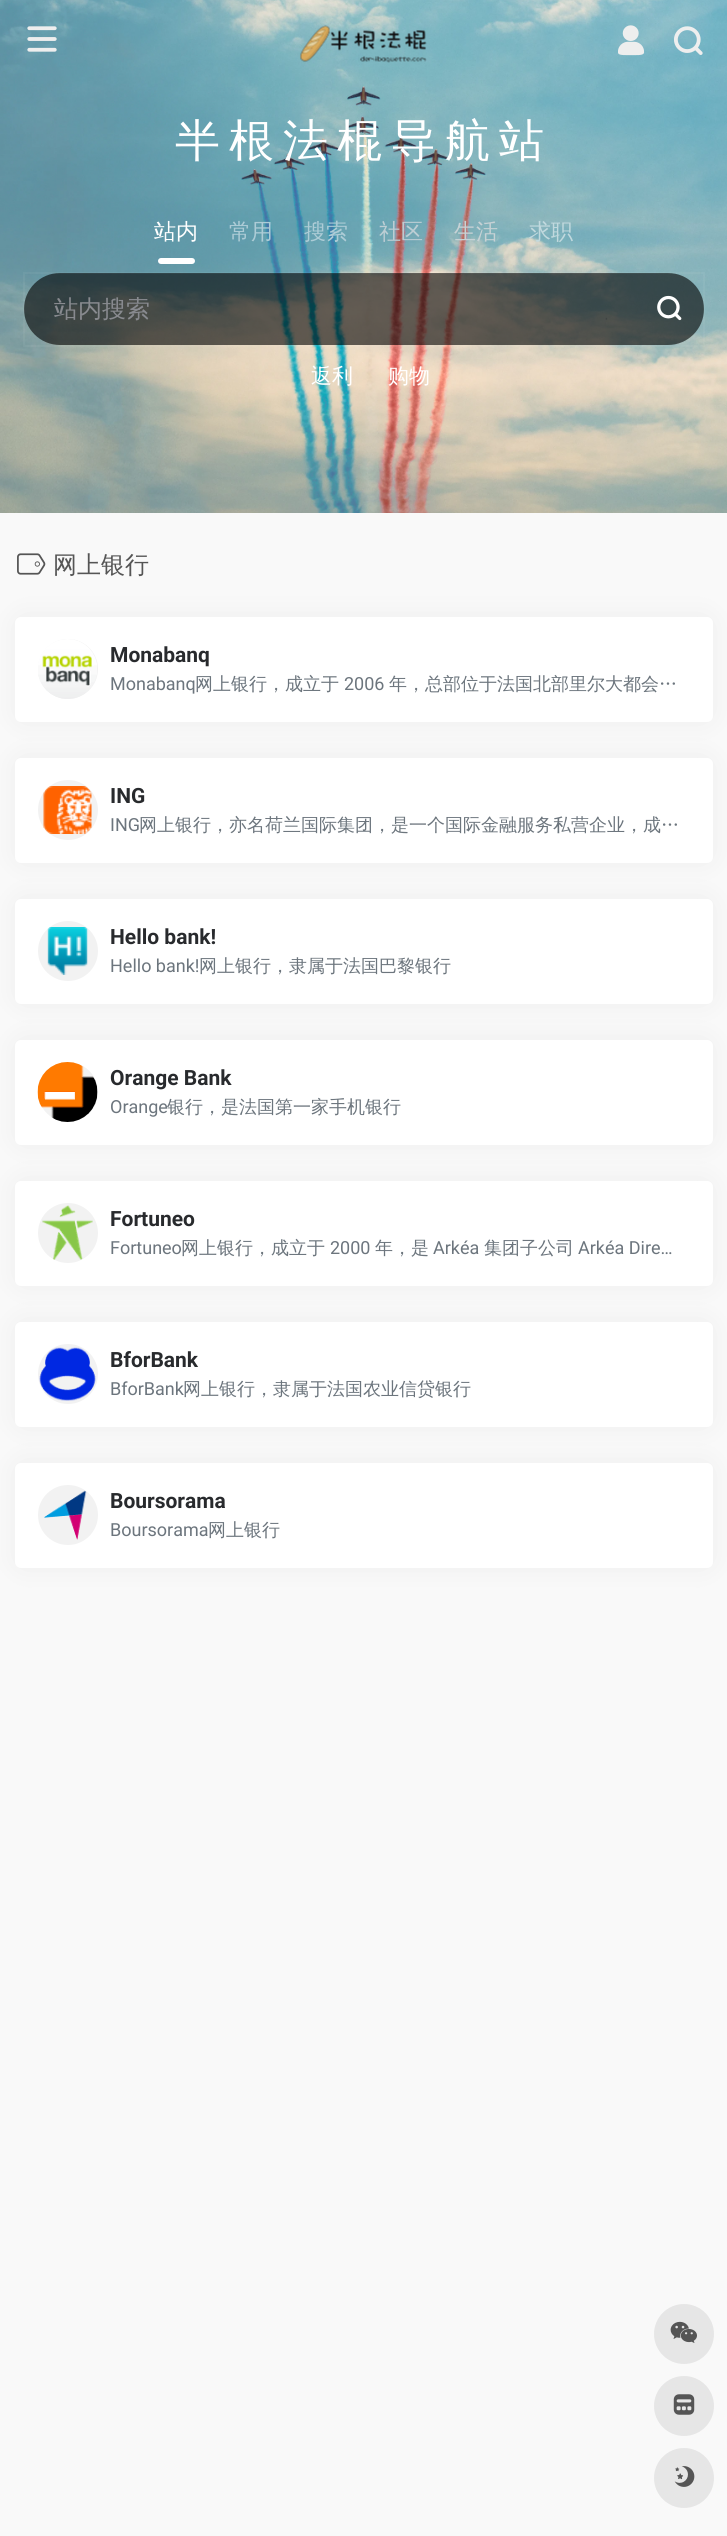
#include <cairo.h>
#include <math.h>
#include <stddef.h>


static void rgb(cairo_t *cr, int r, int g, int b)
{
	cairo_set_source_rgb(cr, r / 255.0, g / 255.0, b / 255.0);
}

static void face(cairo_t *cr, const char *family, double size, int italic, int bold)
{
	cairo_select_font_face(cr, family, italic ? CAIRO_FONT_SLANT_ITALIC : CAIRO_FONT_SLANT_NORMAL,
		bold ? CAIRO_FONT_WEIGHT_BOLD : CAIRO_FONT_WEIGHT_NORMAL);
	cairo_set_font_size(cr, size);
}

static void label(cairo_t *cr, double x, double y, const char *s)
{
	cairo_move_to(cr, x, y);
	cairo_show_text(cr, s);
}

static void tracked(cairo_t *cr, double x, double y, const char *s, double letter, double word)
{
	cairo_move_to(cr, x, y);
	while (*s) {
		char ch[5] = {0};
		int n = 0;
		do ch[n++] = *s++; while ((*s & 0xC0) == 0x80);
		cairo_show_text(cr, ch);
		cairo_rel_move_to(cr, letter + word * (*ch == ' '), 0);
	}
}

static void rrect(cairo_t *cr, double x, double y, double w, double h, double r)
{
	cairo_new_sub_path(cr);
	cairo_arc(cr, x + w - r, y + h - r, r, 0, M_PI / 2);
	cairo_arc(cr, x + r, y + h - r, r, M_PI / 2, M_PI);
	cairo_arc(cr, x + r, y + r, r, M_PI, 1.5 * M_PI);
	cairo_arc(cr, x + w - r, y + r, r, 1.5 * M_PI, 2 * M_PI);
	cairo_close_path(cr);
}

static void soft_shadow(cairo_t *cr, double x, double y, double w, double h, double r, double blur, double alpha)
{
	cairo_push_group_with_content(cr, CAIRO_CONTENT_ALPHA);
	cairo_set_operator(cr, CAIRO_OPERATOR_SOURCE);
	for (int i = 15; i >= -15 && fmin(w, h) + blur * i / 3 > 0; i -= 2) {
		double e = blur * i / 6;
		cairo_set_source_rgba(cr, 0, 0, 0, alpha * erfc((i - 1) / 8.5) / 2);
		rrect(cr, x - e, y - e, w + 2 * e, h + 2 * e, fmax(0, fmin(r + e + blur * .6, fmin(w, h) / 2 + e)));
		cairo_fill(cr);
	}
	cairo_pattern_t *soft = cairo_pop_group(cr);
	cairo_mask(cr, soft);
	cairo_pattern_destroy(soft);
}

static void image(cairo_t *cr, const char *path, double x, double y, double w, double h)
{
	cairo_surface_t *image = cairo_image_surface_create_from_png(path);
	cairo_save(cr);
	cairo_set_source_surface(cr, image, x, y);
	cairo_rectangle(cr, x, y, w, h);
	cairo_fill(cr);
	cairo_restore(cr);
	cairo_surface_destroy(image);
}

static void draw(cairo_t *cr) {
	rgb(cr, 249, 249, 249);
	cairo_paint(cr);
	image(cr, "image4.png", 0, 0, 727, 513);
	image(cr, "image0.png", 27, 26, 30, 26);
	image(cr, "image1.png", 300, 25, 127, 38);
	image(cr, "image2.png", 618, 25, 27, 31);
	image(cr, "image3.png", 674, 26, 29, 29);
	face(cr, "WenQuanYi Zen Hei Medium", 45, 0, 0);
	rgb(cr, 255, 255, 255);
	tracked(cr, 175, 156, "半根法棍导航站", 9, 0);
	face(cr, "WenQuanYi Zen Hei Medium", 22, 0, 0);
	label(cr, 154, 239, "站内");
	rgb(cr, 173, 204, 214);
	label(cr, 229, 239, "常用");
	label(cr, 304, 239, "搜索");
	rgb(cr, 189, 206, 212);
	label(cr, 379, 239, "社区");
	rgb(cr, 199, 210, 213);
	label(cr, 454, 239, "生活");
	rgb(cr, 193, 217, 222);
	label(cr, 529, 239, "求职");
	rgb(cr, 255, 255, 255);
	rrect(cr, 158, 258, 37, 6, 3);
	cairo_fill(cr);
	cairo_set_source_rgba(cr, 0, 0, 0, 0.6);
	rrect(cr, 24, 273, 680, 72, 36);
	cairo_fill(cr);
	cairo_rectangle(cr, 24, 273, 680, 73);
	cairo_set_source_rgba(cr, 1, 1, 1, 0.05);
	cairo_stroke(cr);
	face(cr, "WenQuanYi Zen Hei Medium", 24, 0, 0);
	rgb(cr, 136, 138, 143);
	label(cr, 54, 317, "站内搜索");
	image(cr, "image5.png", 657, 295, 25, 26);
	face(cr, "WenQuanYi Zen Hei Medium", 21, 0, 0);
	rgb(cr, 255, 255, 255);
	label(cr, 311, 383, "返利");
	label(cr, 388, 383, "购物");
	image(cr, "image6.png", 17, 553, 29, 22);
	face(cr, "WenQuanYi Zen Hei Medium", 24, 0, 0);
	rgb(cr, 85, 85, 85);
	label(cr, 53, 573, "网上银行");
	rgb(cr, 158, 158, 158);
	soft_shadow(cr, 23, 624, 682, 90, 0, 15, 0.2);
	rgb(cr, 255, 255, 255);
	rrect(cr, 15, 617, 698, 105, 6);
	cairo_fill(cr);
	rgb(cr, 242, 242, 242);
	cairo_arc(cr, 68, 669, 30, 0, 2 * M_PI);
	cairo_fill(cr);
	image(cr, "image7.png", 38, 639, 59, 60);
	face(cr, "Roboto", 21, 0, 1);
	rgb(cr, 40, 42, 45);
	label(cr, 110, 662, "Monabanq");
	face(cr, "Roboto", 18, 0, 0);
	rgb(cr, 108, 117, 125);
	label(cr, 110, 690, "Monabanq");
	face(cr, "WenQuanYi Zen Hei Medium", 18, 0, 0);
	label(cr, 195, 690, "网上银行，成立于");
	face(cr, "Roboto", 18, 0, 0);
	label(cr, 344, 690, "2006");
	face(cr, "WenQuanYi Zen Hei Medium", 18, 0, 0);
	label(cr, 389, 690, "年，总部位于法国北部里尔大都会…");
	rgb(cr, 158, 158, 158);
	soft_shadow(cr, 23, 765, 682, 90, 0, 15, 0.2);
	rgb(cr, 255, 255, 255);
	rrect(cr, 15, 758, 698, 105, 6);
	cairo_fill(cr);
	rgb(cr, 242, 242, 242);
	cairo_arc(cr, 68, 810, 30, 0, 2 * M_PI);
	cairo_fill(cr);
	image(cr, "image8.png", 43, 786, 49, 48);
	face(cr, "Roboto", 21, 0, 1);
	rgb(cr, 40, 42, 45);
	label(cr, 110, 803, "ING");
	face(cr, "Roboto", 18, 0, 0);
	rgb(cr, 108, 117, 125);
	label(cr, 110, 831, "ING");
	face(cr, "WenQuanYi Zen Hei Medium", 18, 0, 0);
	label(cr, 139, 831, "网上银行，亦名荷兰国际集团，是一个国际金融服务私营企业，成…");
	rgb(cr, 158, 158, 158);
	soft_shadow(cr, 23, 906, 682, 90, 0, 15, 0.2);
	rgb(cr, 255, 255, 255);
	rrect(cr, 15, 899, 698, 105, 6);
	cairo_fill(cr);
	rgb(cr, 242, 242, 242);
	cairo_arc(cr, 68, 951, 30, 0, 2 * M_PI);
	cairo_fill(cr);
	image(cr, "image9.png", 47, 927, 41, 48);
	face(cr, "Roboto", 21, 0, 1);
	rgb(cr, 40, 42, 45);
	label(cr, 110, 944, "Hello bank!");
	face(cr, "Roboto", 18, 0, 0);
	rgb(cr, 108, 117, 125);
	label(cr, 110, 972, "Hello bank!");
	face(cr, "WenQuanYi Zen Hei Medium", 18, 0, 0);
	label(cr, 199, 972, "网上银行，隶属于法国巴黎银行");
	rgb(cr, 158, 158, 158);
	soft_shadow(cr, 23, 1047, 682, 90, 0, 15, 0.2);
	rgb(cr, 255, 255, 255);
	rrect(cr, 15, 1040, 698, 105, 6);
	cairo_fill(cr);
	rgb(cr, 242, 242, 242);
	cairo_arc(cr, 68, 1092, 30, 0, 2 * M_PI);
	cairo_fill(cr);
	image(cr, "image10.png", 37, 1062, 61, 60);
	face(cr, "Roboto", 21, 0, 1);
	rgb(cr, 40, 42, 45);
	label(cr, 110, 1085, "Orange Bank");
	face(cr, "Roboto", 18, 0, 0);
	rgb(cr, 108, 117, 125);
	label(cr, 110, 1113, "Orange");
	face(cr, "WenQuanYi Zen Hei Medium", 18, 0, 0);
	label(cr, 167, 1113, "银行，是法国第一家手机银行");
	rgb(cr, 158, 158, 158);
	soft_shadow(cr, 23, 1188, 682, 90, 0, 15, 0.2);
	rgb(cr, 255, 255, 255);
	rrect(cr, 15, 1181, 698, 105, 6);
	cairo_fill(cr);
	rgb(cr, 242, 242, 242);
	cairo_arc(cr, 68, 1233, 30, 0, 2 * M_PI);
	cairo_fill(cr);
	image(cr, "image11.png", 42, 1205, 51, 55);
	face(cr, "Roboto", 21, 0, 1);
	rgb(cr, 40, 42, 45);
	label(cr, 110, 1226, "Fortuneo");
	face(cr, "Roboto", 18, 0, 0);
	rgb(cr, 108, 117, 125);
	label(cr, 110, 1254, "Fortuneo");
	face(cr, "WenQuanYi Zen Hei Medium", 18, 0, 0);
	label(cr, 181, 1254, "网上银行，成立于");
	face(cr, "Roboto", 18, 0, 0);
	label(cr, 330, 1254, "2000");
	face(cr, "WenQuanYi Zen Hei Medium", 18, 0, 0);
	label(cr, 375, 1254, "年，是");
	face(cr, "Roboto", 18, 0, 0);
	label(cr, 433, 1254, "Arkéa");
	face(cr, "WenQuanYi Zen Hei Medium", 18, 0, 0);
	label(cr, 484, 1254, "集团子公司");
	face(cr, "Roboto", 18, 0, 0);
	label(cr, 578, 1254, "Arkéa Dire…");
	rgb(cr, 158, 158, 158);
	soft_shadow(cr, 23, 1329, 682, 90, 0, 15, 0.2);
	rgb(cr, 255, 255, 255);
	rrect(cr, 15, 1322, 698, 105, 6);
	cairo_fill(cr);
	rgb(cr, 242, 242, 242);
	cairo_arc(cr, 68, 1374, 30, 0, 2 * M_PI);
	cairo_fill(cr);
	image(cr, "image12.png", 39, 1347, 57, 54);
	face(cr, "Roboto", 21, 0, 1);
	rgb(cr, 40, 42, 45);
	label(cr, 110, 1367, "BforBank");
	face(cr, "Roboto", 18, 0, 0);
	rgb(cr, 108, 117, 125);
	label(cr, 110, 1395, "BforBank");
	face(cr, "WenQuanYi Zen Hei Medium", 18, 0, 0);
	label(cr, 183, 1395, "网上银行，隶属于法国农业信贷银行");
	rgb(cr, 158, 158, 158);
	soft_shadow(cr, 23, 1470, 682, 90, 0, 15, 0.2);
	rgb(cr, 255, 255, 255);
	rrect(cr, 15, 1463, 698, 105, 6);
	cairo_fill(cr);
	rgb(cr, 242, 242, 242);
	cairo_arc(cr, 68, 1515, 30, 0, 2 * M_PI);
	cairo_fill(cr);
	image(cr, "image13.png", 44, 1490, 43, 50);
	face(cr, "Roboto", 21, 0, 1);
	rgb(cr, 40, 42, 45);
	label(cr, 110, 1508, "Boursorama");
	face(cr, "Roboto", 18, 0, 0);
	rgb(cr, 108, 117, 125);
	label(cr, 110, 1536, "Boursorama");
	face(cr, "WenQuanYi Zen Hei Medium", 18, 0, 0);
	label(cr, 208, 1536, "网上银行");
	rgb(cr, 230, 230, 230);
	cairo_new_path(cr);
	cairo_arc(cr, 684, 2334, 30, 0, 2 * M_PI);
	cairo_fill(cr);
	image(cr, "image14.png", 670, 2321, 27, 22);
	cairo_arc(cr, 684, 2406, 30, 0, 2 * M_PI);
	cairo_fill(cr);
	image(cr, "image15.png", 673, 2394, 22, 21);
	cairo_arc(cr, 684, 2478, 30, 0, 2 * M_PI);
	cairo_fill(cr);
	image(cr, "image16.png", 674, 2466, 21, 21);
}

int main(void) {
	cairo_surface_t *surface = cairo_image_surface_create(CAIRO_FORMAT_RGB24, 727, 2536);
	cairo_t *cr = cairo_create(surface);
	cairo_font_options_t *options = cairo_font_options_create();
	cairo_font_options_set_hint_metrics(options, CAIRO_HINT_METRICS_OFF);
	cairo_font_options_set_hint_style(options, CAIRO_HINT_STYLE_NONE);
	cairo_set_font_options(cr, options);
	cairo_set_miter_limit(cr, 4);
	draw(cr);
	cairo_surface_write_to_png(surface, "render.png");
	cairo_font_options_destroy(options);
	cairo_destroy(cr);
	cairo_surface_destroy(surface);
	return 0;
}
